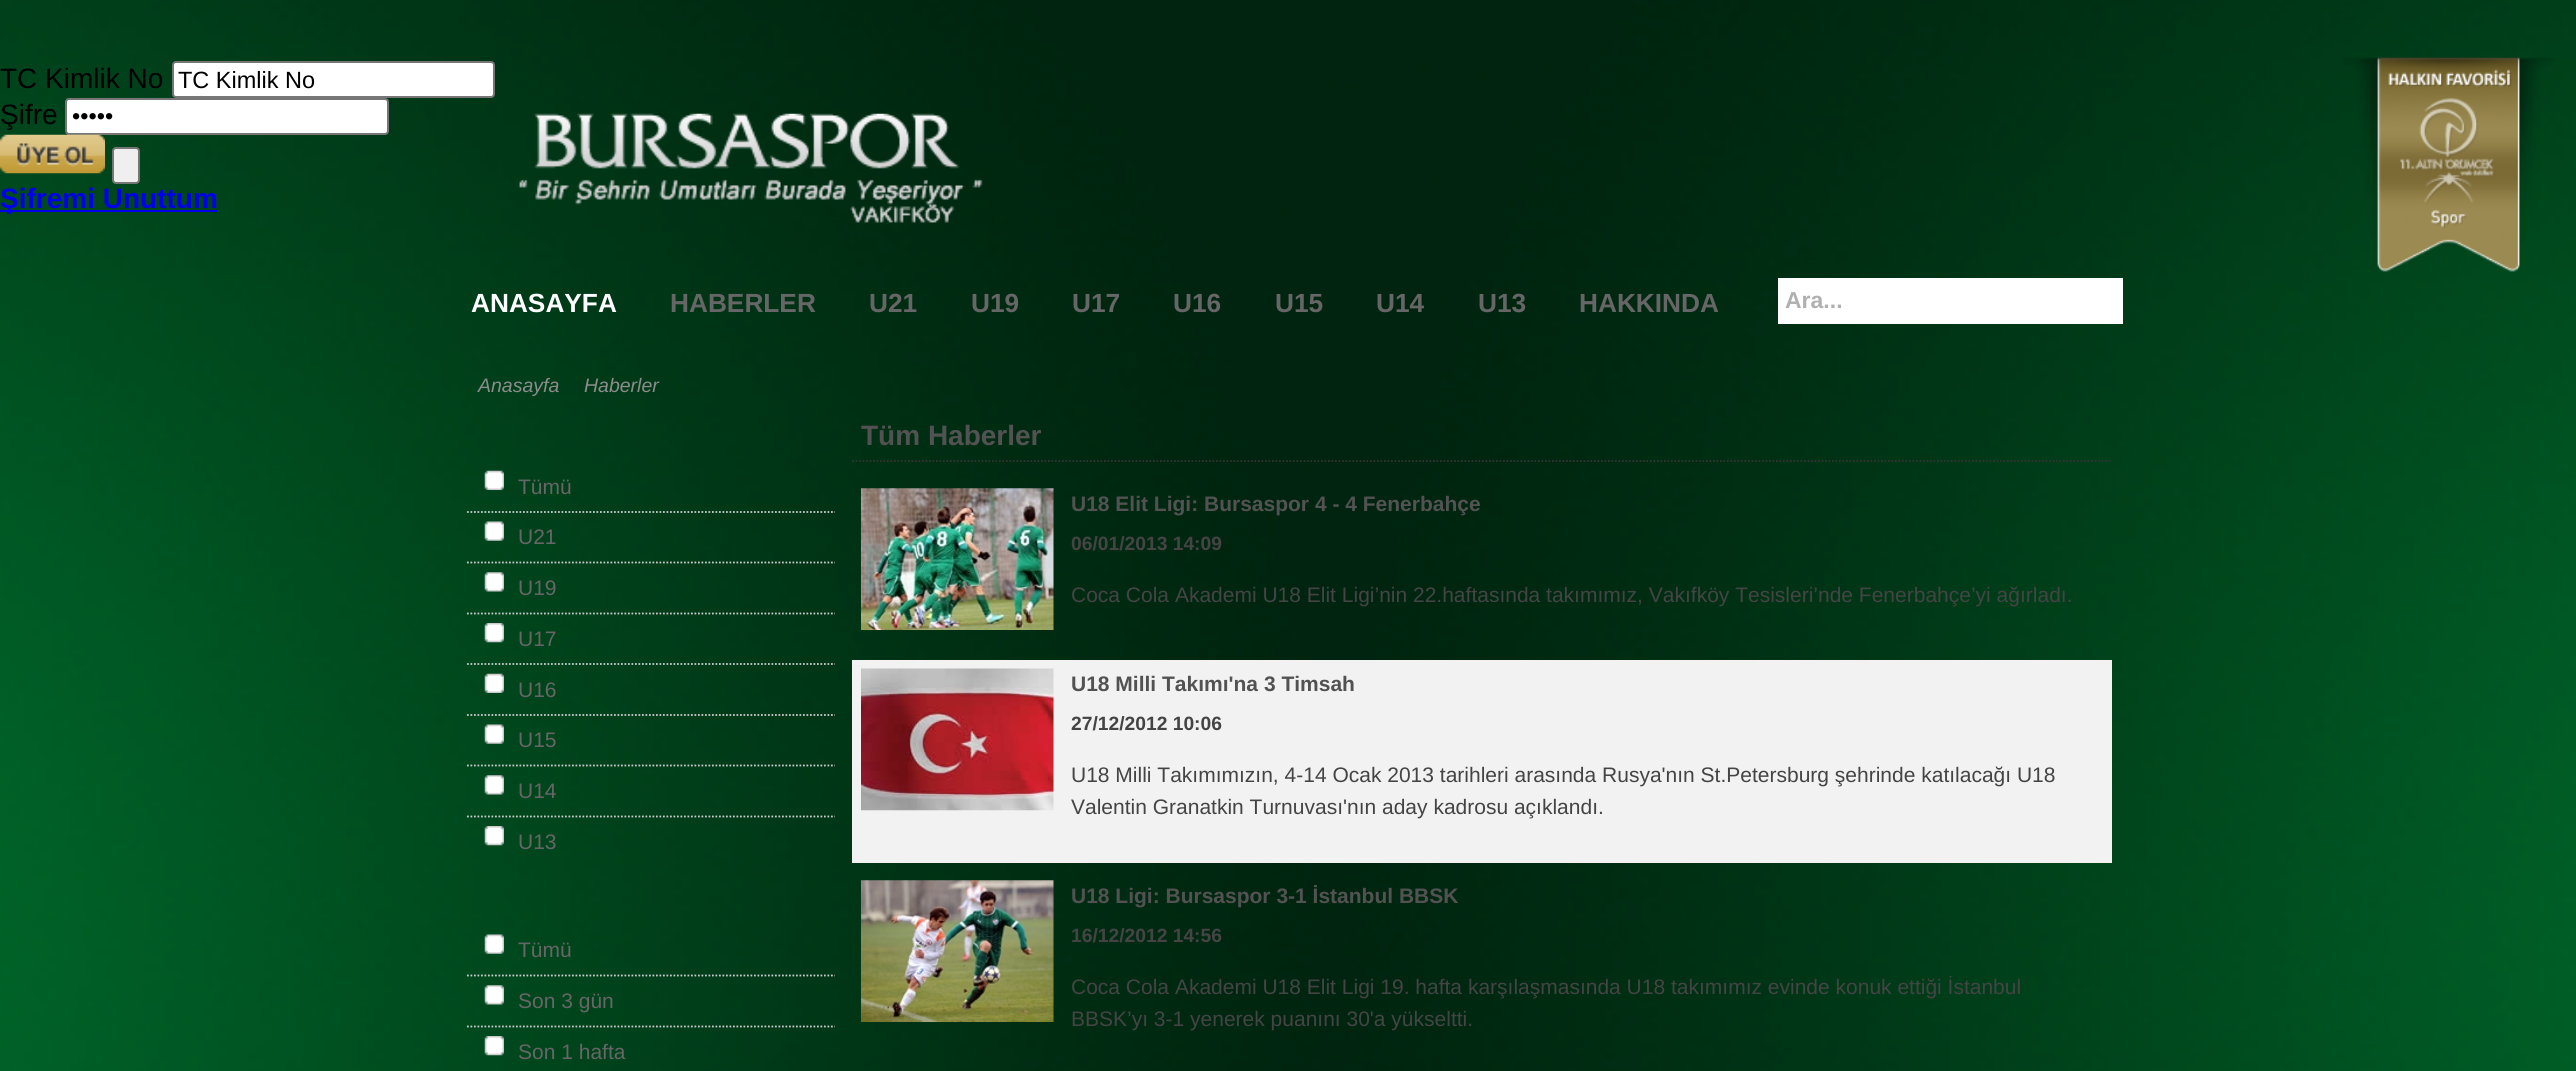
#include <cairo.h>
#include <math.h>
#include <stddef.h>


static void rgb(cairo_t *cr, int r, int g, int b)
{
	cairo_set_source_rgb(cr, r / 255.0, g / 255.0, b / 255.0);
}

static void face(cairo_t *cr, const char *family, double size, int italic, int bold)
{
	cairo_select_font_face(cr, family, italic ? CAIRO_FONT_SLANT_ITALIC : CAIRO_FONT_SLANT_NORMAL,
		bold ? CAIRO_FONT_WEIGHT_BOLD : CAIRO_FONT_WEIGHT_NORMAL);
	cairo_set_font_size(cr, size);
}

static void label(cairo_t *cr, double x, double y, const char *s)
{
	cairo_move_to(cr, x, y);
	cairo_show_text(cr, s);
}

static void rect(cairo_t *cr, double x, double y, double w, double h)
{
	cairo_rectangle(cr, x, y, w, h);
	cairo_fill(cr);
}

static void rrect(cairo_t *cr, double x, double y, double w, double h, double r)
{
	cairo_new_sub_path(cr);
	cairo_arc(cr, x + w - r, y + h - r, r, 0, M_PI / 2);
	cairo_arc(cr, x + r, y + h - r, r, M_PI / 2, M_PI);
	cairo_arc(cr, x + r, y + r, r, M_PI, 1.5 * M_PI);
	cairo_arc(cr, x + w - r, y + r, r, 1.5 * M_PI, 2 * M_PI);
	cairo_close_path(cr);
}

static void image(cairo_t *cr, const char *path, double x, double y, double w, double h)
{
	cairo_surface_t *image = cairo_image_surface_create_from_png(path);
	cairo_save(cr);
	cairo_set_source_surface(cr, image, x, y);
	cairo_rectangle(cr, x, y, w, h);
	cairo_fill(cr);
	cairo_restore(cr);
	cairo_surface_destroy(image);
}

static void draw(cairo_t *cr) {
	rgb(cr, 255, 255, 255);
	cairo_paint(cr);
	image(cr, "image0.png", 0, 0, 2576, 1071);
	face(cr, "Liberation Sans", 28, 0, 0);
	rgb(cr, 0, 0, 0);
	label(cr, 0, 88, "TC Kimlik No");
	rgb(cr, 255, 255, 255);
	rrect(cr, 173, 62, 321, 35, 3);
	cairo_fill_preserve(cr);
	rgb(cr, 118, 118, 118);
	cairo_stroke(cr);
	face(cr, "Liberation Sans", 23.5, 0, 0);
	rgb(cr, 0, 0, 0);
	label(cr, 178, 88, "TC Kimlik No");
	face(cr, "Liberation Sans", 28, 0, 0);
	label(cr, 0, 124, "Şifre");
	rgb(cr, 255, 255, 255);
	rrect(cr, 66, 99, 322, 35, 3);
	cairo_fill_preserve(cr);
	rgb(cr, 118, 118, 118);
	cairo_stroke(cr);
	face(cr, "Liberation Sans", 23.5, 0, 0);
	rgb(cr, 0, 0, 0);
	label(cr, 72, 124, "•••••");
	image(cr, "image1.png", 0, 134, 105, 40);
	rgb(cr, 239, 239, 239);
	rrect(cr, 113, 148, 26, 35, 3);
	cairo_fill_preserve(cr);
	rgb(cr, 118, 118, 118);
	cairo_stroke(cr);
	rgb(cr, 0, 0, 238);
	rect(cr, 0, 210, 217, 2);
	face(cr, "Liberation Sans", 28, 0, 1);
	label(cr, 0, 208, "Şifremi Unuttum");
	image(cr, "image2.png", 2343, 57, 212, 215);
	image(cr, "image3.png", 518, 113, 465, 110);
	face(cr, "Liberation Sans", 26.25, 0, 1);
	rgb(cr, 255, 255, 255);
	label(cr, 471, 312, "ANASAYFA");
	rgb(cr, 102, 102, 102);
	label(cr, 670, 312, "HABERLER");
	label(cr, 869, 312, "U21");
	label(cr, 971, 312, "U19");
	label(cr, 1072, 312, "U17");
	label(cr, 1173, 312, "U16");
	label(cr, 1275, 312, "U15");
	label(cr, 1376, 312, "U14");
	label(cr, 1478, 312, "U13");
	label(cr, 1579, 312, "HAKKINDA");
	rgb(cr, 255, 255, 255);
	rect(cr, 1778, 278, 345, 46);
	face(cr, "Liberation Sans", 23, 0, 1);
	rgb(cr, 176, 176, 176);
	label(cr, 1785, 308, "Ara...");
	face(cr, "Liberation Sans", 19.5, 1, 0);
	rgb(cr, 140, 140, 140);
	label(cr, 478, 392, "Anasayfa");
	label(cr, 584, 392, "Haberler");
	cairo_new_path(cr);
	cairo_move_to(cr, 467, 512);
	cairo_line_to(cr, 835, 512);
	rgb(cr, 204, 204, 204);
	cairo_set_line_width(cr, 1.8);
	cairo_set_dash(cr, (double[]){1.75, 1.75}, 2, 0);
	cairo_stroke(cr);
	image(cr, "image4.png", 484, 470, 20, 20);
	face(cr, "Liberation Sans", 21, 0, 0);
	rgb(cr, 102, 102, 102);
	label(cr, 518, 494, "Tümü");
	cairo_new_path(cr);
	cairo_move_to(cr, 467, 562.5);
	cairo_line_to(cr, 835, 562.5);
	rgb(cr, 204, 204, 204);
	cairo_stroke(cr);
	image(cr, "image5.png", 484, 521, 20, 20);
	rgb(cr, 102, 102, 102);
	label(cr, 518, 544, "U21");
	cairo_new_path(cr);
	cairo_move_to(cr, 467, 613.5);
	cairo_line_to(cr, 835, 613.5);
	rgb(cr, 204, 204, 204);
	cairo_stroke(cr);
	image(cr, "image6.png", 484, 572, 20, 20);
	rgb(cr, 102, 102, 102);
	label(cr, 518, 595, "U19");
	cairo_new_path(cr);
	cairo_move_to(cr, 467, 664);
	cairo_line_to(cr, 835, 664);
	rgb(cr, 204, 204, 204);
	cairo_stroke(cr);
	image(cr, "image7.png", 484, 623, 20, 20);
	rgb(cr, 102, 102, 102);
	label(cr, 518, 646, "U17");
	cairo_new_path(cr);
	cairo_move_to(cr, 467, 715);
	cairo_line_to(cr, 835, 715);
	rgb(cr, 204, 204, 204);
	cairo_stroke(cr);
	image(cr, "image8.png", 484, 673, 20, 20);
	rgb(cr, 102, 102, 102);
	label(cr, 518, 697, "U16");
	cairo_new_path(cr);
	cairo_move_to(cr, 467, 765.5);
	cairo_line_to(cr, 835, 765.5);
	rgb(cr, 204, 204, 204);
	cairo_stroke(cr);
	image(cr, "image9.png", 484, 724, 20, 20);
	rgb(cr, 102, 102, 102);
	label(cr, 518, 747, "U15");
	cairo_new_path(cr);
	cairo_move_to(cr, 467, 816.5);
	cairo_line_to(cr, 835, 816.5);
	rgb(cr, 204, 204, 204);
	cairo_stroke(cr);
	image(cr, "image10.png", 484, 775, 20, 20);
	rgb(cr, 102, 102, 102);
	label(cr, 518, 798, "U14");
	image(cr, "image11.png", 484, 826, 20, 20);
	label(cr, 518, 849, "U13");
	cairo_new_path(cr);
	cairo_move_to(cr, 467, 975.5);
	cairo_line_to(cr, 835, 975.5);
	rgb(cr, 204, 204, 204);
	cairo_stroke(cr);
	image(cr, "image12.png", 484, 934, 20, 20);
	rgb(cr, 102, 102, 102);
	label(cr, 518, 957, "Tümü");
	cairo_new_path(cr);
	cairo_move_to(cr, 467, 1026.5);
	cairo_line_to(cr, 835, 1026.5);
	rgb(cr, 204, 204, 204);
	cairo_stroke(cr);
	image(cr, "image13.png", 484, 985, 20, 20);
	rgb(cr, 102, 102, 102);
	label(cr, 518, 1008, "Son 3 gün");
	image(cr, "image14.png", 484, 1036, 20, 20);
	label(cr, 518, 1059, "Son 1 hafta");
	face(cr, "Liberation Sans", 28, 0, 1);
	rgb(cr, 82, 82, 82);
	label(cr, 861, 445, "Tüm Haberler");
	cairo_new_path(cr);
	cairo_move_to(cr, 852, 461);
	cairo_line_to(cr, 2112, 461);
	rgb(cr, 51, 51, 51);
	cairo_stroke(cr);
	image(cr, "image15.png", 861, 488, 193, 142);
	face(cr, "Liberation Sans", 21, 0, 1);
	rgb(cr, 82, 82, 82);
	label(cr, 1071, 511, "U18 Elit Ligi: Bursaspor 4 - 4 Fenerbahçe");
	face(cr, "Liberation Sans", 19.25, 0, 1);
	rgb(cr, 68, 68, 68);
	label(cr, 1071, 550, "06/01/2013 14:09");
	face(cr, "Liberation Sans", 21, 0, 0);
	label(cr, 1071, 602, "Coca Cola Akademi U18 Elit Ligi’nin 22.haftasında takımımız, Vakıfköy Tesisleri’nde Fenerbahçe’yi ağırladı.");
	rgb(cr, 242, 242, 242);
	rect(cr, 852, 660, 1260, 203);
	image(cr, "image16.png", 861, 668, 193, 143);
	face(cr, "Liberation Sans", 21, 0, 1);
	rgb(cr, 82, 82, 82);
	label(cr, 1071, 691, "U18 Milli Takımı'na 3 Timsah");
	face(cr, "Liberation Sans", 19.25, 0, 1);
	rgb(cr, 68, 68, 68);
	label(cr, 1071, 730, "27/12/2012 10:06");
	face(cr, "Liberation Sans", 21, 0, 0);
	label(cr, 1071, 782, "U18 Milli Takımımızın, 4-14 Ocak 2013 tarihleri arasında Rusya'nın St.Petersburg şehrinde katılacağı U18");
	label(cr, 1071, 814, "Valentin Granatkin Turnuvası'nın aday kadrosu açıklandı.");
	image(cr, "image17.png", 861, 880, 193, 142);
	face(cr, "Liberation Sans", 21, 0, 1);
	rgb(cr, 82, 82, 82);
	label(cr, 1071, 903, "U18 Ligi: Bursaspor 3-1 İstanbul BBSK");
	face(cr, "Liberation Sans", 19.25, 0, 1);
	rgb(cr, 68, 68, 68);
	label(cr, 1071, 942, "16/12/2012 14:56");
	face(cr, "Liberation Sans", 21, 0, 0);
	label(cr, 1071, 994, "Coca Cola Akademi U18 Elit Ligi 19. hafta karşılaşmasında U18 takımımız evinde konuk ettiği İstanbul");
	label(cr, 1071, 1026, "BBSK’yı 3-1 yenerek puanını 30'a yükseltti.");
}

int main(void) {
	cairo_surface_t *surface = cairo_image_surface_create(CAIRO_FORMAT_RGB24, 2576, 1071);
	cairo_t *cr = cairo_create(surface);
	cairo_font_options_t *options = cairo_font_options_create();
	cairo_font_options_set_hint_metrics(options, CAIRO_HINT_METRICS_OFF);
	cairo_font_options_set_hint_style(options, CAIRO_HINT_STYLE_NONE);
	cairo_set_font_options(cr, options);
	cairo_set_miter_limit(cr, 4);
	draw(cr);
	cairo_surface_write_to_png(surface, "render.png");
	cairo_font_options_destroy(options);
	cairo_destroy(cr);
	cairo_surface_destroy(surface);
	return 0;
}
